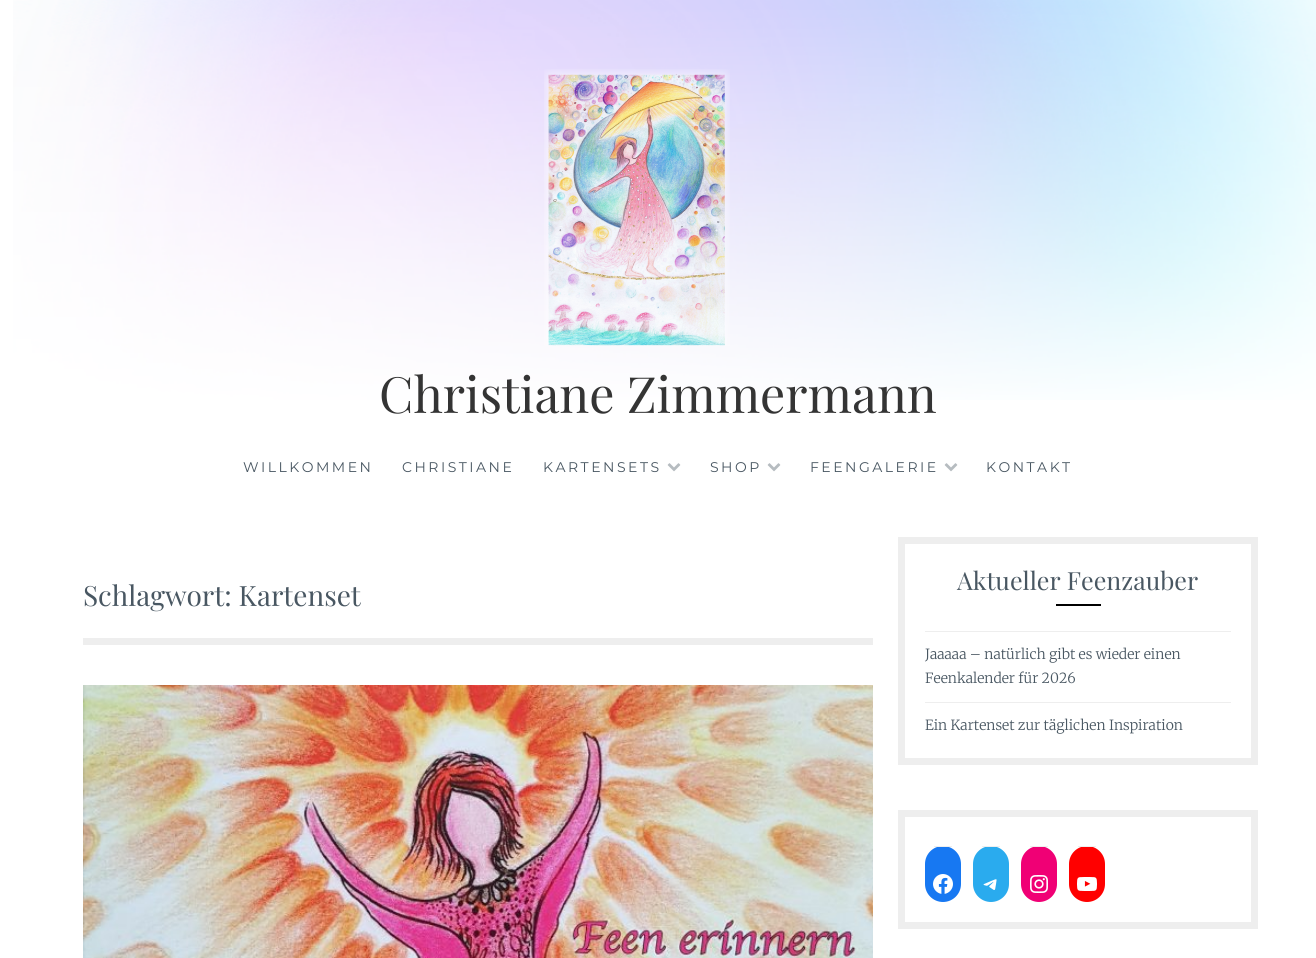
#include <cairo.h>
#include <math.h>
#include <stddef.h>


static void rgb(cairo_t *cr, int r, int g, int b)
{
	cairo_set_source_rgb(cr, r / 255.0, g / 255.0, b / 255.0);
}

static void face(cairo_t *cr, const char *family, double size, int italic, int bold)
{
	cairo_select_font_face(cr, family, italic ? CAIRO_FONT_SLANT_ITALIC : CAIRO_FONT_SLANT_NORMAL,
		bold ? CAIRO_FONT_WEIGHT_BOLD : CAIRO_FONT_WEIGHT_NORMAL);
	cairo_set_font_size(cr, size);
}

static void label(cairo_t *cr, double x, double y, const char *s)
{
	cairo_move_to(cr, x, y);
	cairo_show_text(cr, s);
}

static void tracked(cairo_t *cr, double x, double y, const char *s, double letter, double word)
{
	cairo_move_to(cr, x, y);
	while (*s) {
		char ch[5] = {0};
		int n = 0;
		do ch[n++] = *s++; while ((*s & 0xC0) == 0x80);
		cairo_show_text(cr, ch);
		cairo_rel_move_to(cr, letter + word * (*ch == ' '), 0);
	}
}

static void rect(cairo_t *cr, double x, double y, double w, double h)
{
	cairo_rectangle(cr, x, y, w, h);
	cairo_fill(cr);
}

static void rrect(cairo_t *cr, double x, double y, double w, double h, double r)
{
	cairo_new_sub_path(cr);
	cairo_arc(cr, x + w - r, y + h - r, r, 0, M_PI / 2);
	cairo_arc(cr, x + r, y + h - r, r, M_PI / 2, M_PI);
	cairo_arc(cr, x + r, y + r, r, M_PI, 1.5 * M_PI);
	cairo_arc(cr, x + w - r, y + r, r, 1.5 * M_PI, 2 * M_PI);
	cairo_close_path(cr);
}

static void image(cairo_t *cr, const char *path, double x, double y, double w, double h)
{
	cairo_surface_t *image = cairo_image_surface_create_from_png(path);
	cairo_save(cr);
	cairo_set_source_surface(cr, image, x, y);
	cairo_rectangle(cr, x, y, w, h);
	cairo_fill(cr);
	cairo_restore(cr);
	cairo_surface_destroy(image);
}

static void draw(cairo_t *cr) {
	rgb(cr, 255, 255, 255);
	cairo_paint(cr);
	image(cr, "image0.png", 13, 0, 1303, 400);
	image(cr, "image1.png", 544, 69, 186, 277);
	face(cr, "Playfair Display", 50, 0, 0);
	rgb(cr, 52, 52, 52);
	label(cr, 379, 413, "Christiane Zimmermann");
	face(cr, "Montserrat", 14, 0, 0);
	rgb(cr, 73, 87, 98);
	tracked(cr, 243, 472, "WILLKOMMEN", 2.5, 0);
	tracked(cr, 402, 472, "CHRISTIANE", 2.5, 0);
	tracked(cr, 543, 472, "KARTENSETS", 2.5, 0);
	image(cr, "image2.png", 667, 463, 14, 9);
	tracked(cr, 710, 472, "SHOP", 2.5, 0);
	image(cr, "image2.png", 767, 463, 14, 9);
	tracked(cr, 810, 472, "FEENGALERIE", 2.5, 0);
	image(cr, "image2.png", 944, 463, 14, 9);
	tracked(cr, 986, 472, "KONTAKT", 2.5, 0);
	rgb(cr, 238, 238, 238);
	rect(cr, 83, 638, 790, 7);
	face(cr, "Playfair Display", 28, 0, 0);
	rgb(cr, 73, 87, 98);
	label(cr, 83, 606, "Schlagwort: Kartenset");
	image(cr, "image3.png", 83, 685, 790, 273);
	cairo_rectangle(cr, 901.5, 540.5, 353, 221);
	rgb(cr, 238, 238, 238);
	cairo_set_line_width(cr, 7);
	cairo_stroke(cr);
	face(cr, "Playfair Display", 25, 0, 0);
	rgb(cr, 73, 87, 98);
	label(cr, 957, 590, "Aktueller Feenzauber");
	rgb(cr, 0, 0, 0);
	rect(cr, 1056, 604, 45, 2);
	rgb(cr, 238, 238, 238);
	rect(cr, 925, 631, 306, 1);
	face(cr, "Merriweather Light", 14, 0, 0);
	rgb(cr, 73, 87, 98);
	label(cr, 925, 659, "Jaaaaa – natürlich gibt es wieder einen");
	label(cr, 925, 683, "Feenkalender für 2026");
	rgb(cr, 238, 238, 238);
	rect(cr, 925, 702, 306, 1);
	rgb(cr, 73, 87, 98);
	label(cr, 925, 730, "Ein Kartenset zur täglichen Inspiration");
	cairo_rectangle(cr, 901.5, 813.5, 353, 112);
	rgb(cr, 238, 238, 238);
	cairo_stroke(cr);
	rgb(cr, 23, 120, 242);
	rrect(cr, 925, 846, 36, 56, 18);
	cairo_fill(cr);
	rgb(cr, 238, 238, 238);
	rect(cr, 934, 846, 18, 1);
	image(cr, "image4.png", 933, 874, 20, 20);
	rgb(cr, 42, 171, 238);
	rrect(cr, 973, 846, 36, 56, 18);
	cairo_fill(cr);
	rgb(cr, 238, 238, 238);
	rect(cr, 982, 846, 18, 1);
	image(cr, "image5.png", 983, 879, 14, 11);
	rgb(cr, 240, 0, 117);
	rrect(cr, 1021, 846, 36, 56, 18);
	cairo_fill(cr);
	rgb(cr, 238, 238, 238);
	rect(cr, 1030, 846, 18, 1);
	image(cr, "image6.png", 1030, 875, 18, 18);
	rgb(cr, 255, 0, 0);
	rrect(cr, 1069, 846, 36, 56, 18);
	cairo_fill(cr);
	rgb(cr, 238, 238, 238);
	rect(cr, 1078, 846, 18, 1);
	image(cr, "image7.png", 1077, 877, 20, 14);
}

int main(void) {
	cairo_surface_t *surface = cairo_image_surface_create(CAIRO_FORMAT_RGB24, 1316, 958);
	cairo_t *cr = cairo_create(surface);
	cairo_font_options_t *options = cairo_font_options_create();
	cairo_font_options_set_hint_metrics(options, CAIRO_HINT_METRICS_OFF);
	cairo_font_options_set_hint_style(options, CAIRO_HINT_STYLE_NONE);
	cairo_set_font_options(cr, options);
	cairo_set_miter_limit(cr, 4);
	draw(cr);
	cairo_surface_write_to_png(surface, "render.png");
	cairo_font_options_destroy(options);
	cairo_destroy(cr);
	cairo_surface_destroy(surface);
	return 0;
}
